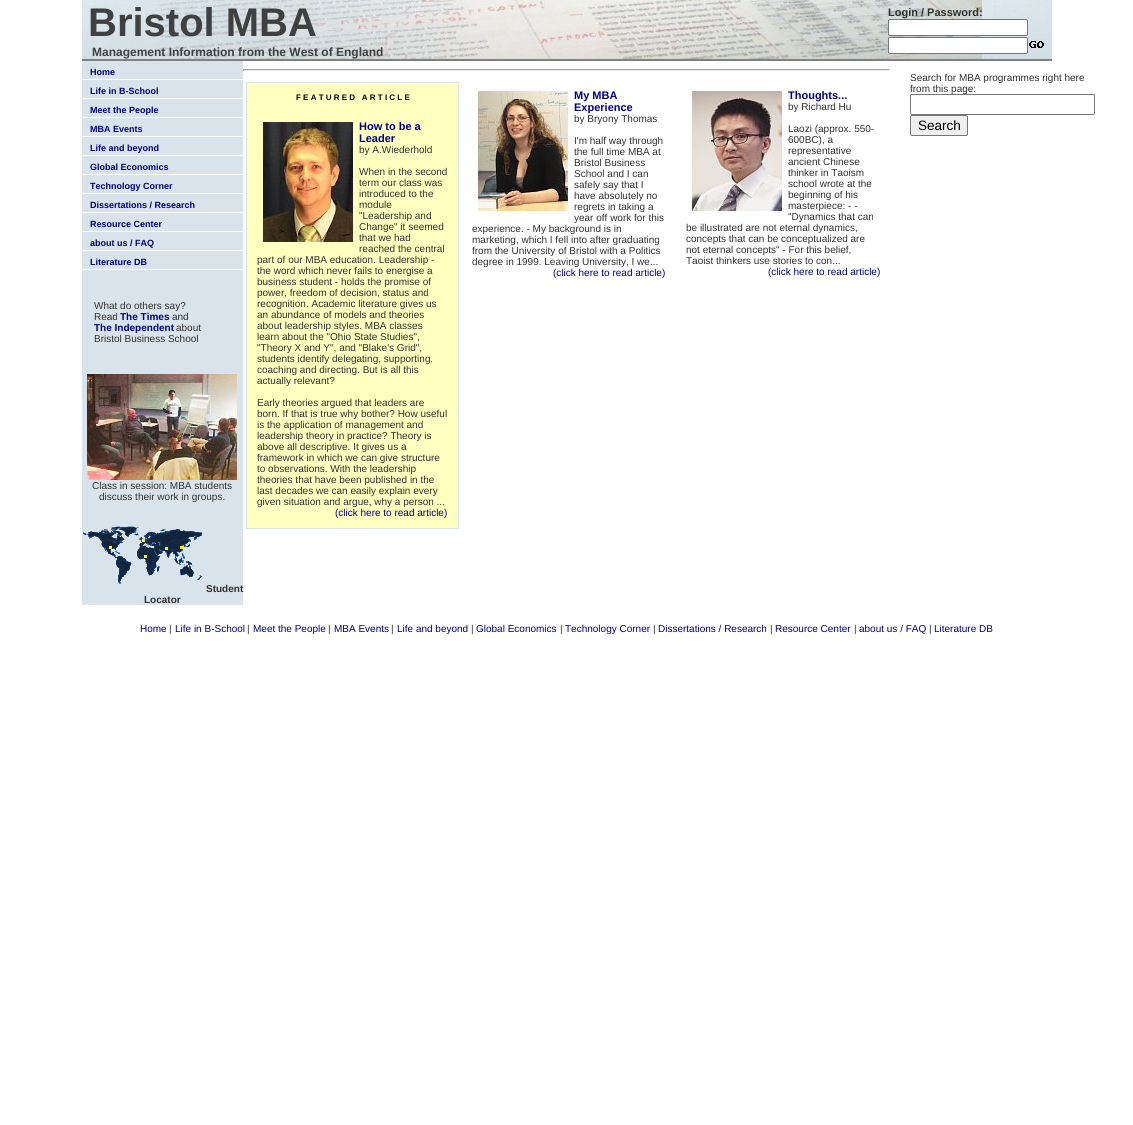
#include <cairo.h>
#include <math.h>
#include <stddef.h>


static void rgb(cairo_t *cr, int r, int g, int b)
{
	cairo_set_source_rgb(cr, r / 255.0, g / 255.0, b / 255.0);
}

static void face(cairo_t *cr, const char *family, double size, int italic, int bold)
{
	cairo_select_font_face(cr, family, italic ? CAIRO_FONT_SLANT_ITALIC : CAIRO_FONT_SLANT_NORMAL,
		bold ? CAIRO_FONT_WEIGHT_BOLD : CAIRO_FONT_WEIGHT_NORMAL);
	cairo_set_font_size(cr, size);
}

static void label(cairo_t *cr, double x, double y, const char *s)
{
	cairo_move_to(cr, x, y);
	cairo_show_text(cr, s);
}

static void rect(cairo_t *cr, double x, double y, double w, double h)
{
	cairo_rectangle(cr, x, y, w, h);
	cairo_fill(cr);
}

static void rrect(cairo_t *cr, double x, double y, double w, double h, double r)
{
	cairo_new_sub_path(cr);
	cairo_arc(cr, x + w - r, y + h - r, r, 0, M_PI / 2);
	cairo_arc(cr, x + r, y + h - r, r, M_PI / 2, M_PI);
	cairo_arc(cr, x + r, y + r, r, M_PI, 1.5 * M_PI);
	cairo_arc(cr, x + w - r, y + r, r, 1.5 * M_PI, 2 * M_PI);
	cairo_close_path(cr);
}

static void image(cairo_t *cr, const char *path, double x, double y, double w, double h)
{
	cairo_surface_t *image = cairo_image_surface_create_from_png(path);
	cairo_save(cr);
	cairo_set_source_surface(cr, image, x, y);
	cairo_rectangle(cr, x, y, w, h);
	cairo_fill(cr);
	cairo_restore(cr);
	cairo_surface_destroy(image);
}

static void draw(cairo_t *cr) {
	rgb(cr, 255, 255, 255);
	cairo_paint(cr);
	image(cr, "image0.png", 82, 0, 970, 59);
	face(cr, "Liberation Sans", 40, 0, 1);
	rgb(cr, 64, 64, 64);
	label(cr, 88, 36, "Bristol MBA");
	face(cr, "Liberation Sans", 12, 0, 1);
	label(cr, 92, 56, "Management Information from the West of England");
	face(cr, "Liberation Sans", 11, 0, 1);
	rgb(cr, 48, 48, 48);
	label(cr, 888, 16, "Login / Password:");
	rgb(cr, 255, 255, 255);
	rrect(cr, 888.5, 19.5, 139, 16, 1.5);
	cairo_fill_preserve(cr);
	rgb(cr, 118, 118, 118);
	cairo_set_line_width(cr, 1);
	cairo_stroke(cr);
	rgb(cr, 255, 255, 255);
	rrect(cr, 888.5, 37.5, 139, 16, 1.5);
	cairo_fill_preserve(cr);
	rgb(cr, 118, 118, 118);
	cairo_stroke(cr);
	image(cr, "image1.png", 1029, 41, 15, 7);
	rgb(cr, 128, 128, 128);
	rect(cr, 82, 59, 970, 2);
	rgb(cr, 217, 227, 235);
	rect(cr, 82, 61, 161, 18);
	face(cr, "Liberation Sans", 9, 0, 1);
	rgb(cr, 0, 0, 128);
	label(cr, 90, 75, "Home");
	rgb(cr, 217, 227, 235);
	rect(cr, 82, 80, 161, 18);
	rgb(cr, 0, 0, 128);
	label(cr, 90, 94, "Life in B-School");
	rgb(cr, 217, 227, 235);
	rect(cr, 82, 99, 161, 18);
	rgb(cr, 0, 0, 128);
	label(cr, 90, 113, "Meet the People");
	rgb(cr, 217, 227, 235);
	rect(cr, 82, 118, 161, 18);
	rgb(cr, 0, 0, 128);
	label(cr, 90, 132, "MBA Events");
	rgb(cr, 217, 227, 235);
	rect(cr, 82, 137, 161, 18);
	rgb(cr, 0, 0, 128);
	label(cr, 90, 151, "Life and beyond");
	rgb(cr, 217, 227, 235);
	rect(cr, 82, 156, 161, 18);
	rgb(cr, 0, 0, 128);
	label(cr, 90, 170, "Global Economics");
	rgb(cr, 217, 227, 235);
	rect(cr, 82, 175, 161, 18);
	rgb(cr, 0, 0, 128);
	label(cr, 90, 189, "Technology Corner");
	rgb(cr, 217, 227, 235);
	rect(cr, 82, 194, 161, 18);
	rgb(cr, 0, 0, 128);
	label(cr, 90, 208, "Dissertations / Research");
	rgb(cr, 217, 227, 235);
	rect(cr, 82, 213, 161, 18);
	rgb(cr, 0, 0, 128);
	label(cr, 90, 227, "Resource Center");
	rgb(cr, 217, 227, 235);
	rect(cr, 82, 232, 161, 18);
	rgb(cr, 0, 0, 128);
	label(cr, 90, 246, "about us / FAQ");
	rgb(cr, 217, 227, 235);
	rect(cr, 82, 251, 161, 18);
	rgb(cr, 0, 0, 128);
	label(cr, 90, 265, "Literature DB");
	rgb(cr, 217, 227, 235);
	rect(cr, 82, 270, 161, 335);
	face(cr, "Liberation Sans", 10, 0, 0);
	rgb(cr, 48, 48, 48);
	label(cr, 94, 309, "What do others say?");
	label(cr, 94, 320, "Read");
	face(cr, "Liberation Sans", 10, 0, 1);
	rgb(cr, 0, 0, 128);
	label(cr, 120, 320, "The Times");
	face(cr, "Liberation Sans", 10, 0, 0);
	rgb(cr, 48, 48, 48);
	label(cr, 172, 320, "and");
	face(cr, "Liberation Sans", 10, 0, 1);
	rgb(cr, 0, 0, 128);
	label(cr, 94, 331, "The Independent");
	face(cr, "Liberation Sans", 10, 0, 0);
	rgb(cr, 48, 48, 48);
	label(cr, 176, 331, "about");
	label(cr, 94, 342, "Bristol Business School");
	image(cr, "image2.png", 87, 374, 150, 106);
	label(cr, 92, 489, "Class in session: MBA students");
	label(cr, 99, 500, "discuss their work in groups.");
	image(cr, "image3.png", 83, 526, 120, 58);
	face(cr, "Liberation Sans", 10, 0, 1);
	label(cr, 206, 592, "Student");
	label(cr, 144, 603, "Locator");
	rgb(cr, 159, 159, 159);
	rect(cr, 243, 69, 647, 1);
	rgb(cr, 238, 238, 238);
	rect(cr, 889, 69, 1, 2);
	rect(cr, 243, 70, 647, 1);
	rgb(cr, 159, 159, 159);
	rect(cr, 243, 69, 1, 2);
	rgb(cr, 255, 255, 191);
	cairo_rectangle(cr, 246.5, 82.5, 212, 446);
	cairo_fill_preserve(cr);
	rgb(cr, 217, 227, 235);
	cairo_stroke(cr);
	face(cr, "Liberation Sans", 8, 0, 1);
	rgb(cr, 0, 0, 0);
	label(cr, 296, 100, "F E A T U R E D   A R T I C L E");
	face(cr, "Liberation Sans", 11, 0, 1);
	rgb(cr, 0, 0, 128);
	label(cr, 359, 130, "How to be a");
	label(cr, 359, 142, "Leader");
	face(cr, "Liberation Sans", 10, 0, 0);
	rgb(cr, 48, 48, 48);
	label(cr, 359, 153, "by A.Wiederhold");
	label(cr, 359, 175, "When in the second");
	label(cr, 359, 186, "term our class was");
	label(cr, 359, 197, "introduced to the");
	label(cr, 359, 208, "module");
	label(cr, 359, 219, "\"Leadership and");
	label(cr, 359, 230, "Change\" it seemed");
	label(cr, 359, 241, "that we had");
	label(cr, 359, 252, "reached the central");
	label(cr, 257, 263, "part of our MBA education. Leadership -");
	label(cr, 257, 274, "the word which never fails to energise a");
	label(cr, 257, 285, "business student - holds the promise of");
	label(cr, 257, 296, "power, freedom of decision, status and");
	label(cr, 257, 307, "recognition. Academic literature gives us");
	label(cr, 257, 318, "an abundance of models and theories");
	label(cr, 257, 329, "about leadership styles. MBA classes");
	label(cr, 257, 340, "learn about the \"Ohio State Studies\",");
	label(cr, 257, 351, "\"Theory X and Y\", and \"Blake's Grid\",");
	label(cr, 257, 362, "students identify delegating, supporting,");
	label(cr, 257, 373, "coaching and directing. But is all this");
	label(cr, 257, 384, "actually relevant?");
	label(cr, 257, 406, "Early theories argued that leaders are");
	label(cr, 257, 417, "born. If that is true why bother? How useful");
	label(cr, 257, 428, "is the application of management and");
	label(cr, 257, 439, "leadership theory in practice? Theory is");
	label(cr, 257, 450, "above all descriptive. It gives us a");
	label(cr, 257, 461, "framework in which we can give structure");
	label(cr, 257, 472, "to observations. With the leadership");
	label(cr, 257, 483, "theories that have been published in the");
	label(cr, 257, 494, "last decades we can easily explain every");
	label(cr, 257, 505, "given situation and argue, why a person ...");
	rgb(cr, 0, 0, 128);
	label(cr, 335, 516, "(click here to read article)");
	image(cr, "image4.png", 263, 122, 90, 120);
	face(cr, "Liberation Sans", 11, 0, 1);
	label(cr, 574, 99, "My MBA");
	label(cr, 574, 111, "Experience");
	face(cr, "Liberation Sans", 10, 0, 0);
	rgb(cr, 48, 48, 48);
	label(cr, 574, 122, "by Bryony Thomas");
	label(cr, 574, 144, "I'm half way through");
	label(cr, 574, 155, "the full time MBA at");
	label(cr, 574, 166, "Bristol Business");
	label(cr, 574, 177, "School and I can");
	label(cr, 574, 188, "safely say that I");
	label(cr, 574, 199, "have absolutely no");
	label(cr, 574, 210, "regrets in taking a");
	label(cr, 574, 221, "year off work for this");
	label(cr, 472, 232, "experience. - My background is in");
	label(cr, 472, 243, "marketing, which I fell into after graduating");
	label(cr, 472, 254, "from the University of Bristol with a Politics");
	label(cr, 472, 265, "degree in 1999. Leaving University, I we...");
	rgb(cr, 0, 0, 128);
	label(cr, 553, 276, "(click here to read article)");
	image(cr, "image5.png", 478, 91, 90, 120);
	face(cr, "Liberation Sans", 11, 0, 1);
	label(cr, 788, 99, "Thoughts...");
	face(cr, "Liberation Sans", 10, 0, 0);
	rgb(cr, 48, 48, 48);
	label(cr, 788, 110, "by Richard Hu");
	label(cr, 788, 132, "Laozi (approx. 550-");
	label(cr, 788, 143, "600BC), a");
	label(cr, 788, 154, "representative");
	label(cr, 788, 165, "ancient Chinese");
	label(cr, 788, 176, "thinker in Taoism");
	label(cr, 788, 187, "school wrote at the");
	label(cr, 788, 198, "beginning of his");
	label(cr, 788, 209, "masterpiece: - -");
	label(cr, 788, 220, "\"Dynamics that can");
	label(cr, 686, 231, "be illustrated are not eternal dynamics,");
	label(cr, 686, 242, "concepts that can be conceptualized are");
	label(cr, 686, 253, "not eternal concepts\" - For this belief,");
	label(cr, 686, 264, "Taoist thinkers use stories to con...");
	rgb(cr, 0, 0, 128);
	label(cr, 768, 275, "(click here to read article)");
	image(cr, "image6.png", 692, 91, 90, 120);
	rgb(cr, 48, 48, 48);
	label(cr, 910, 81, "Search for MBA programmes right here");
	label(cr, 910, 92, "from this page:");
	rgb(cr, 255, 255, 255);
	rrect(cr, 910.5, 94.5, 184, 20, 1.5);
	cairo_fill_preserve(cr);
	rgb(cr, 118, 118, 118);
	cairo_stroke(cr);
	rgb(cr, 239, 239, 239);
	rrect(cr, 910.5, 115.5, 57, 20, 1.5);
	cairo_fill_preserve(cr);
	rgb(cr, 118, 118, 118);
	cairo_stroke(cr);
	face(cr, "Liberation Sans", 13.5, 0, 0);
	rgb(cr, 0, 0, 0);
	label(cr, 918, 130, "Search");
	face(cr, "Liberation Sans", 10, 0, 0);
	rgb(cr, 0, 0, 128);
	label(cr, 140, 632, "Home");
	rgb(cr, 48, 48, 48);
	label(cr, 169, 632, "|");
	rgb(cr, 0, 0, 128);
	label(cr, 175, 632, "Life in B-School");
	rgb(cr, 48, 48, 48);
	label(cr, 247, 632, "|");
	rgb(cr, 0, 0, 128);
	label(cr, 253, 632, "Meet the People");
	rgb(cr, 48, 48, 48);
	label(cr, 328, 632, "|");
	rgb(cr, 0, 0, 128);
	label(cr, 334, 632, "MBA Events");
	rgb(cr, 48, 48, 48);
	label(cr, 391, 632, "|");
	rgb(cr, 0, 0, 128);
	label(cr, 397, 632, "Life and beyond");
	rgb(cr, 48, 48, 48);
	label(cr, 471, 632, "|");
	rgb(cr, 0, 0, 128);
	label(cr, 476, 632, "Global Economics");
	rgb(cr, 48, 48, 48);
	label(cr, 560, 632, "|");
	rgb(cr, 0, 0, 128);
	label(cr, 565, 632, "Technology Corner");
	rgb(cr, 48, 48, 48);
	label(cr, 653, 632, "|");
	rgb(cr, 0, 0, 128);
	label(cr, 658, 632, "Dissertations / Research");
	rgb(cr, 48, 48, 48);
	label(cr, 770, 632, "|");
	rgb(cr, 0, 0, 128);
	label(cr, 775, 632, "Resource Center");
	rgb(cr, 48, 48, 48);
	label(cr, 854, 632, "|");
	rgb(cr, 0, 0, 128);
	label(cr, 859, 632, "about us / FAQ");
	rgb(cr, 48, 48, 48);
	label(cr, 929, 632, "|");
	rgb(cr, 0, 0, 128);
	label(cr, 934, 632, "Literature DB");
}

int main(void) {
	cairo_surface_t *surface = cairo_image_surface_create(CAIRO_FORMAT_RGB24, 1133, 1125);
	cairo_t *cr = cairo_create(surface);
	cairo_font_options_t *options = cairo_font_options_create();
	cairo_font_options_set_hint_metrics(options, CAIRO_HINT_METRICS_OFF);
	cairo_font_options_set_hint_style(options, CAIRO_HINT_STYLE_NONE);
	cairo_set_font_options(cr, options);
	cairo_set_miter_limit(cr, 4);
	draw(cr);
	cairo_surface_write_to_png(surface, "render.png");
	cairo_font_options_destroy(options);
	cairo_destroy(cr);
	cairo_surface_destroy(surface);
	return 0;
}
